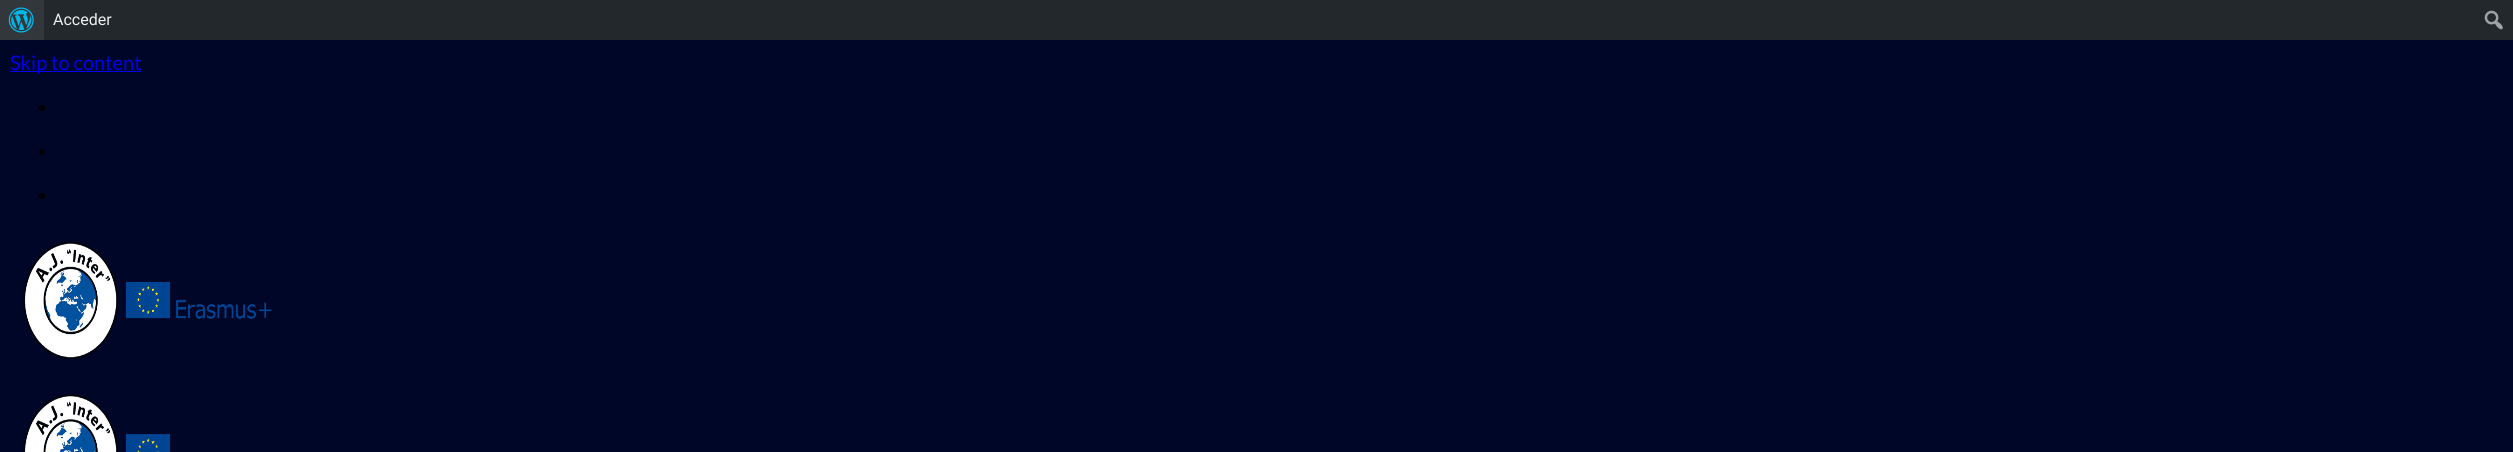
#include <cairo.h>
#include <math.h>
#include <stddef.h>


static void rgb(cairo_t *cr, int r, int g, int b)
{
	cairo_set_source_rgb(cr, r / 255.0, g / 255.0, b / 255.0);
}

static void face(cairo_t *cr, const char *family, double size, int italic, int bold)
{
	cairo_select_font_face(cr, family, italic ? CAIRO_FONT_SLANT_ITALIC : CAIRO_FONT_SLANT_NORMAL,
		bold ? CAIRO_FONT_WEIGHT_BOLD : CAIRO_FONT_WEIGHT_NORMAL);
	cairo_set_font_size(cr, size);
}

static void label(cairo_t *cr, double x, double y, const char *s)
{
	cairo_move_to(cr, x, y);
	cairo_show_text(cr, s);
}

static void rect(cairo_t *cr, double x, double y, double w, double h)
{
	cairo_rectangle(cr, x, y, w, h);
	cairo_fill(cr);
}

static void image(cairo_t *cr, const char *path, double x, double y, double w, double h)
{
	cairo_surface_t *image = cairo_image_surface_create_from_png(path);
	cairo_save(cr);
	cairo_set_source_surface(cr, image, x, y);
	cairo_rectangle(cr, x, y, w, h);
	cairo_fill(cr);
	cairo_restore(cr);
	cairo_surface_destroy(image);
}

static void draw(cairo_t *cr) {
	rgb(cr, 0, 6, 40);
	cairo_paint(cr);
	rgb(cr, 35, 40, 45);
	rect(cr, 44, 0, 2469, 40);
	rgb(cr, 50, 55, 60);
	rect(cr, 0, 0, 44, 40);
	image(cr, "image0.png", 8, 7, 26, 26);
	face(cr, "Roboto", 16, 0, 0);
	rgb(cr, 238, 238, 238);
	label(cr, 53, 25, "Acceder");
	image(cr, "image1.png", 2484, 10, 19, 20);
	rgb(cr, 0, 0, 238);
	rect(cr, 10, 71, 131, 1);
	face(cr, "Lato", 20, 0, 0);
	label(cr, 10, 70, "Skip to content");
	rgb(cr, 0, 0, 0);
	cairo_new_path(cr);
	cairo_arc(cr, 42, 108, 3, 0, 2 * M_PI);
	cairo_fill(cr);
	cairo_arc(cr, 42, 152, 3, 0, 2 * M_PI);
	cairo_fill(cr);
	cairo_arc(cr, 42, 196, 3, 0, 2 * M_PI);
	cairo_fill(cr);
	image(cr, "image2.png", 23, 241, 249, 118);
	image(cr, "image3.png", 23, 394, 148, 58);
}

int main(void) {
	cairo_surface_t *surface = cairo_image_surface_create(CAIRO_FORMAT_RGB24, 2513, 452);
	cairo_t *cr = cairo_create(surface);
	cairo_font_options_t *options = cairo_font_options_create();
	cairo_font_options_set_hint_metrics(options, CAIRO_HINT_METRICS_OFF);
	cairo_font_options_set_hint_style(options, CAIRO_HINT_STYLE_NONE);
	cairo_set_font_options(cr, options);
	cairo_set_miter_limit(cr, 4);
	draw(cr);
	cairo_surface_write_to_png(surface, "render.png");
	cairo_font_options_destroy(options);
	cairo_destroy(cr);
	cairo_surface_destroy(surface);
	return 0;
}
